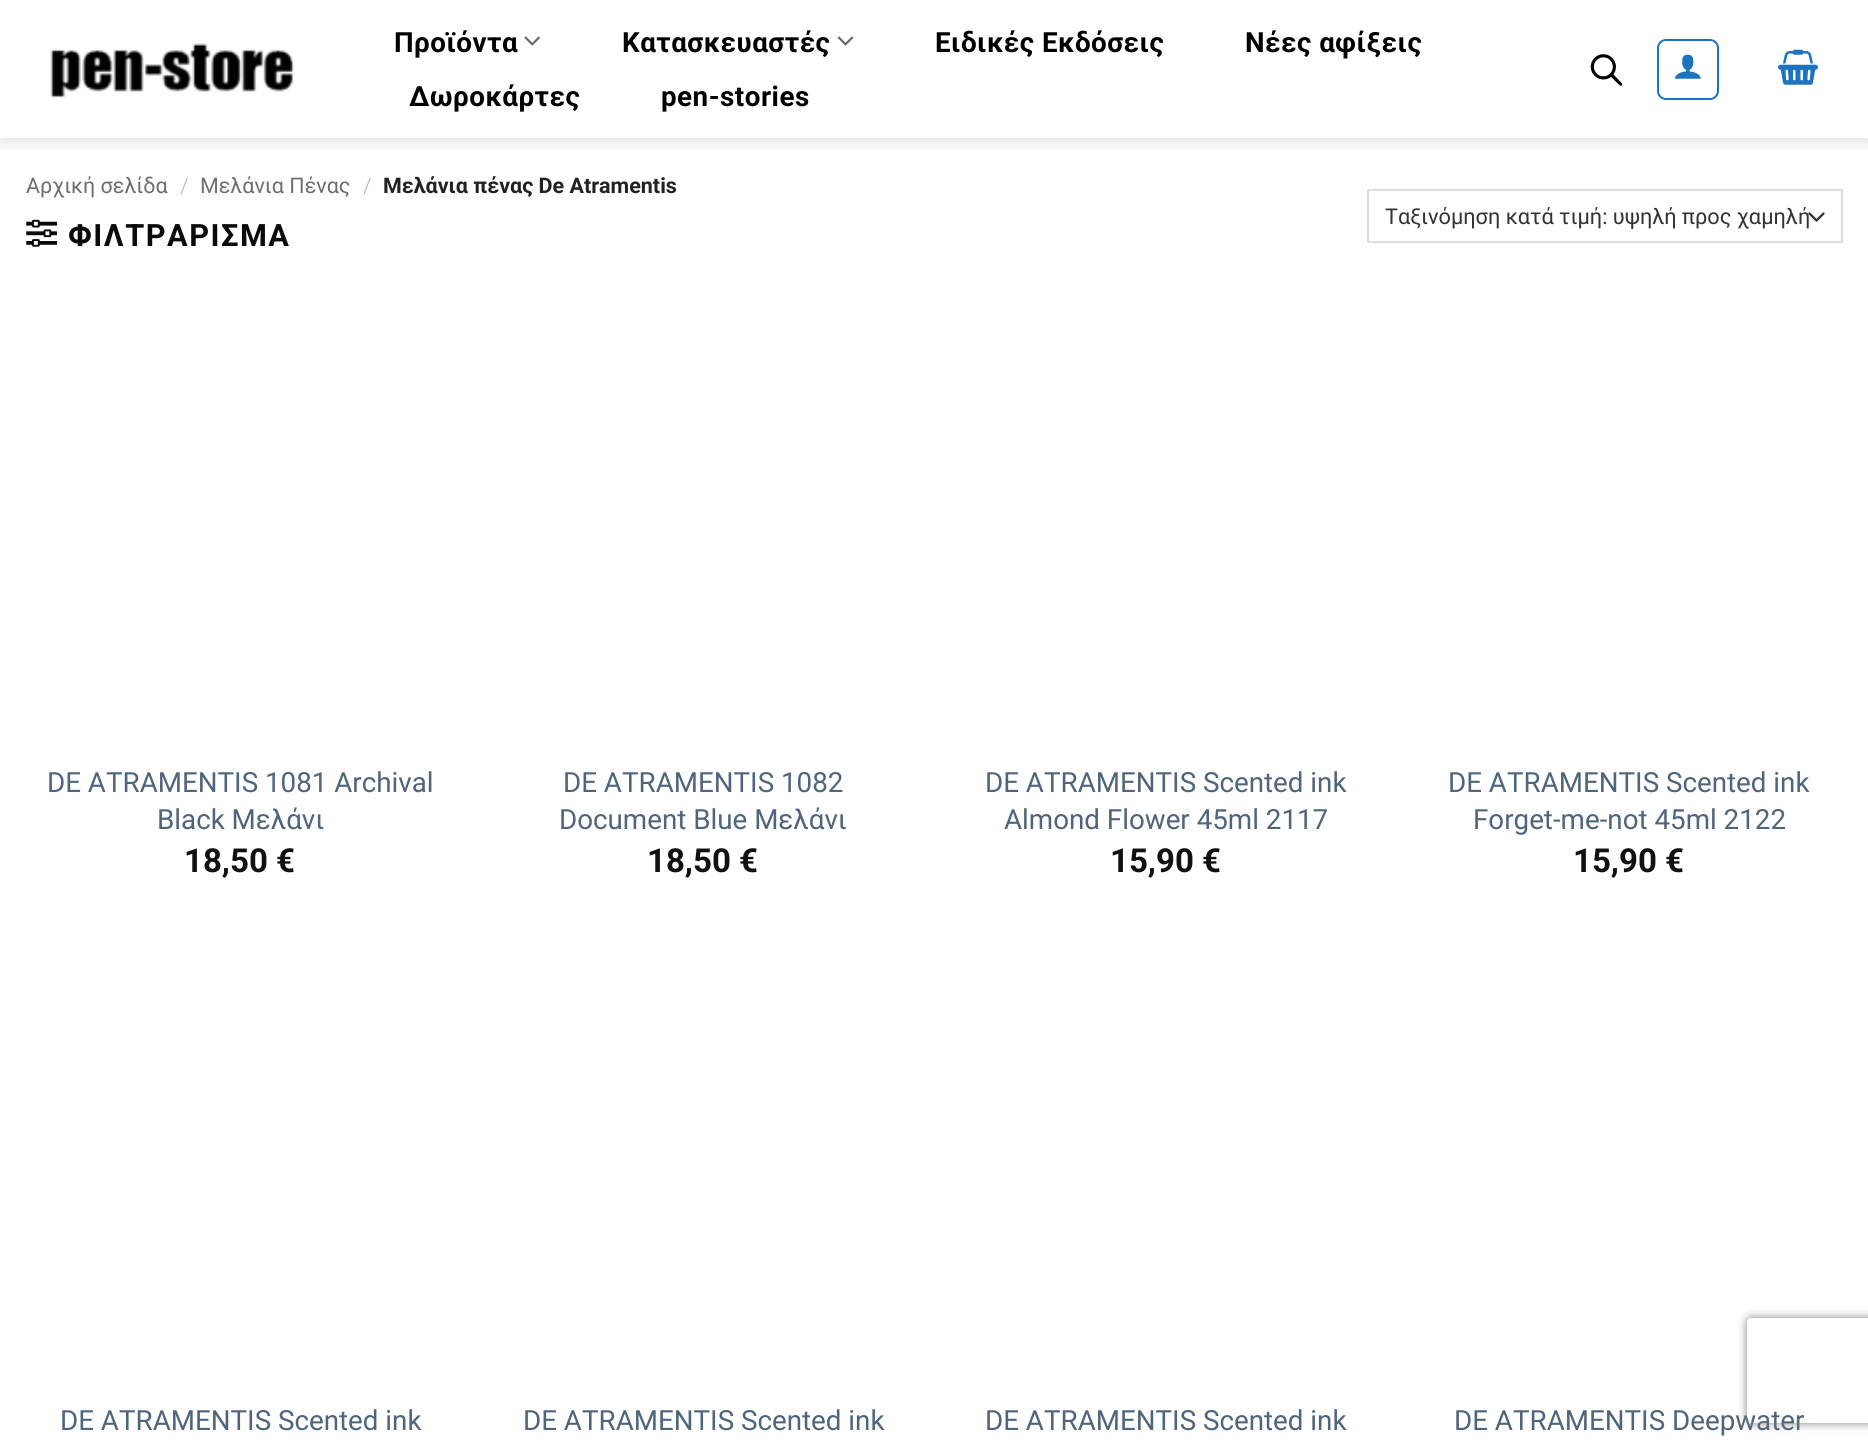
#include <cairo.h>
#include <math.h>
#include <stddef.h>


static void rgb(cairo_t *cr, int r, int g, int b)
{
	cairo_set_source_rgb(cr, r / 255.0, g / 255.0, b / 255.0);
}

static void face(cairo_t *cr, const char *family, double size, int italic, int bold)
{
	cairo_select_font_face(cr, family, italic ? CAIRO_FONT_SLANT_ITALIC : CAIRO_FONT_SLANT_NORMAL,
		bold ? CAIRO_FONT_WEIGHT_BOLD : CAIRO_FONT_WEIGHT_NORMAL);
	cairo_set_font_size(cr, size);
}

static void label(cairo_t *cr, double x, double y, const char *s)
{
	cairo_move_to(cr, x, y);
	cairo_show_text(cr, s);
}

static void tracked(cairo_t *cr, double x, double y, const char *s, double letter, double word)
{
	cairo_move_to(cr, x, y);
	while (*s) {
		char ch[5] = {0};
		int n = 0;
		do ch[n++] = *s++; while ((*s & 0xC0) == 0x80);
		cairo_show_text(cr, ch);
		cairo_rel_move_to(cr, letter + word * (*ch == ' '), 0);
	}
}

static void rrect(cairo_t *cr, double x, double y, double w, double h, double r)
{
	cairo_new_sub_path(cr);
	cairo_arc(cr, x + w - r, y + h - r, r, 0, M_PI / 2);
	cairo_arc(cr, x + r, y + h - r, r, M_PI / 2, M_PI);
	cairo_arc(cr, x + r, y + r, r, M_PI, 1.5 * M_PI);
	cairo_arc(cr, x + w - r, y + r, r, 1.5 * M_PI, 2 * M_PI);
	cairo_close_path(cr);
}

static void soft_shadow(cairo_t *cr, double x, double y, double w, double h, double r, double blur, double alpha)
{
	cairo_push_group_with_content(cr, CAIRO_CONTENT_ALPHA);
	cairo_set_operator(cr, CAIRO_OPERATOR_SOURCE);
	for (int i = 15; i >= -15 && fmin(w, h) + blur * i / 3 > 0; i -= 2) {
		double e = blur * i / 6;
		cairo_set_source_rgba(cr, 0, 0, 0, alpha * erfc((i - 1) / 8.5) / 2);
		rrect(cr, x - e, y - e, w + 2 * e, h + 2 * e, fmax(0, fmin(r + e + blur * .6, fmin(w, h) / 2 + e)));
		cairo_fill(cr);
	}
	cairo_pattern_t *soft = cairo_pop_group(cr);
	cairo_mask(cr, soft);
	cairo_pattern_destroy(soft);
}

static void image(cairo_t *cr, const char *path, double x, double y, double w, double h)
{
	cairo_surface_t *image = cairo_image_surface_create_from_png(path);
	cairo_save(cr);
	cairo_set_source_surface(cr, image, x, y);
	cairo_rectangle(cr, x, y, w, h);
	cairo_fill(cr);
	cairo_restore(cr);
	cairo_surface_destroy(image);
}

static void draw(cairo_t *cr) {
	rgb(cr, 255, 255, 255);
	cairo_paint(cr);
	cairo_save(cr);
	cairo_rectangle(cr, 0, 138, 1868, 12);
	cairo_clip(cr);
	rgb(cr, 0, 0, 0);
	soft_shadow(cr, 2, 2, 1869, 138, 0, 9, 0.15);
	cairo_restore(cr);
	image(cr, "image0.png", 50, 43, 244, 55);
	face(cr, "Roboto", 27.75, 0, 1);
	rgb(cr, 0, 0, 0);
	tracked(cr, 394, 52, "Προϊόντα", 0.5, 0);
	image(cr, "image1.png", 524, 36, 16, 10);
	tracked(cr, 622, 52, "Κατασκευαστές", 0.5, 0);
	image(cr, "image2.png", 837, 36, 17, 10);
	tracked(cr, 935, 52, "Ειδικές Εκδόσεις", 0.5, 0);
	tracked(cr, 1245, 52, "Νέες αφίξεις", 0.5, 0);
	tracked(cr, 409, 106, "Δωροκάρτες", 0.5, 0);
	tracked(cr, 661, 106, "pen-stories", 0.5, 0);
	image(cr, "image3.png", 1590, 54, 33, 32);
	rrect(cr, 1658, 40, 60, 59, 8);
	rgb(cr, 30, 115, 190);
	cairo_stroke(cr);
	image(cr, "image4.png", 1674, 54, 27, 25);
	image(cr, "image5.png", 1778, 49, 40, 36);
	face(cr, "Roboto", 21.5, 0, 0);
	rgb(cr, 110, 110, 110);
	label(cr, 26, 193, "Αρχική σελίδα");
	face(cr, "Roboto Light", 21.5, 0, 0);
	rgb(cr, 178, 178, 178);
	label(cr, 180, 193, "/");
	face(cr, "Roboto", 21.5, 0, 0);
	rgb(cr, 110, 110, 110);
	label(cr, 200, 193, "Μελάνια Πένας");
	face(cr, "Roboto Light", 21.5, 0, 0);
	rgb(cr, 178, 178, 178);
	label(cr, 363, 193, "/");
	face(cr, "Roboto", 21.5, 0, 1);
	rgb(cr, 34, 34, 34);
	label(cr, 383, 193, "Μελάνια πένας De Atramentis");
	image(cr, "image6.png", 26, 219, 32, 28);
	face(cr, "Roboto", 30.75, 0, 1);
	rgb(cr, 10, 10, 10);
	tracked(cr, 68, 246, "ΦΙΛΤΡΑΡΙΣΜΑ", 1.5, 0);
	cairo_new_path(cr);
	cairo_move_to(cr, 1809.5, 213.5);
	cairo_line_to(cr, 1816.5, 220.5);
	cairo_line_to(cr, 1823.5, 213.5);
	rgb(cr, 51, 51, 51);
	cairo_set_line_width(cr, 2.3);
	cairo_set_line_cap(cr, CAIRO_LINE_CAP_ROUND);
	cairo_set_line_join(cr, CAIRO_LINE_JOIN_ROUND);
	cairo_stroke(cr);
	cairo_rectangle(cr, 1368, 190, 474, 52);
	rgb(cr, 221, 221, 221);
	cairo_set_line_width(cr, 2);
	cairo_set_line_cap(cr, CAIRO_LINE_CAP_BUTT);
	cairo_set_line_join(cr, CAIRO_LINE_JOIN_MITER);
	cairo_stroke(cr);
	face(cr, "Roboto", 21.75, 0, 0);
	rgb(cr, 51, 51, 51);
	label(cr, 1385, 224, "Ταξινόμηση κατά τιμή: υψηλή προς χαμηλή");
	face(cr, "Roboto", 27.75, 0, 0);
	rgb(cr, 78, 101, 123);
	label(cr, 47, 792, "DE ATRAMENTIS 1081 Archival");
	label(cr, 157, 829, "Black Μελάνι");
	face(cr, "Roboto", 33, 0, 1);
	rgb(cr, 17, 17, 17);
	label(cr, 184, 872, "18,50 €");
	face(cr, "Roboto", 27.75, 0, 0);
	rgb(cr, 78, 101, 123);
	label(cr, 563, 792, "DE ATRAMENTIS 1082");
	label(cr, 559, 829, "Document Blue Μελάνι");
	face(cr, "Roboto", 33, 0, 1);
	rgb(cr, 17, 17, 17);
	label(cr, 647, 872, "18,50 €");
	face(cr, "Roboto", 27.75, 0, 0);
	rgb(cr, 78, 101, 123);
	label(cr, 985, 792, "DE ATRAMENTIS Scented ink");
	label(cr, 1004, 829, "Almond Flower 45ml 2117");
	face(cr, "Roboto", 33, 0, 1);
	rgb(cr, 17, 17, 17);
	label(cr, 1110, 872, "15,90 €");
	face(cr, "Roboto", 27.75, 0, 0);
	rgb(cr, 78, 101, 123);
	label(cr, 1448, 792, "DE ATRAMENTIS Scented ink");
	label(cr, 1473, 829, "Forget-me-not 45ml 2122");
	face(cr, "Roboto", 33, 0, 1);
	rgb(cr, 17, 17, 17);
	label(cr, 1573, 872, "15,90 €");
	face(cr, "Roboto", 27.75, 0, 0);
	rgb(cr, 78, 101, 123);
	label(cr, 60, 1430, "DE ATRAMENTIS Scented ink");
	label(cr, 523, 1430, "DE ATRAMENTIS Scented ink");
	label(cr, 985, 1430, "DE ATRAMENTIS Scented ink");
	label(cr, 1454, 1430, "DE ATRAMENTIS Deepwater");
	cairo_save(cr);
	cairo_set_fill_rule(cr, CAIRO_FILL_RULE_EVEN_ODD);
	cairo_new_path(cr);
	cairo_move_to(cr, 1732, 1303);
	cairo_line_to(cr, 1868, 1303);
	cairo_line_to(cr, 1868, 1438);
	cairo_line_to(cr, 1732, 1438);
	cairo_close_path(cr);
	cairo_move_to(cr, 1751, 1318);
	cairo_line_to(cr, 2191, 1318);
	cairo_curve_to(cr, 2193, 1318, 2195, 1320, 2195, 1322);
	cairo_line_to(cr, 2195, 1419);
	cairo_curve_to(cr, 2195, 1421, 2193, 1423, 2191, 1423);
	cairo_line_to(cr, 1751, 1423);
	cairo_curve_to(cr, 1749, 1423, 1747, 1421, 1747, 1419);
	cairo_line_to(cr, 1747, 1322);
	cairo_curve_to(cr, 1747, 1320, 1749, 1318, 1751, 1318);
	cairo_close_path(cr);
	cairo_clip(cr);
	rgb(cr, 128, 128, 128);
	soft_shadow(cr, 1747, 1318, 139, 105, 4, 4.5, 1);
	cairo_restore(cr);
}

int main(void) {
	cairo_surface_t *surface = cairo_image_surface_create(CAIRO_FORMAT_RGB24, 1868, 1447);
	cairo_t *cr = cairo_create(surface);
	cairo_font_options_t *options = cairo_font_options_create();
	cairo_font_options_set_hint_metrics(options, CAIRO_HINT_METRICS_OFF);
	cairo_font_options_set_hint_style(options, CAIRO_HINT_STYLE_NONE);
	cairo_set_font_options(cr, options);
	cairo_set_miter_limit(cr, 4);
	draw(cr);
	cairo_surface_write_to_png(surface, "render.png");
	cairo_font_options_destroy(options);
	cairo_destroy(cr);
	cairo_surface_destroy(surface);
	return 0;
}
